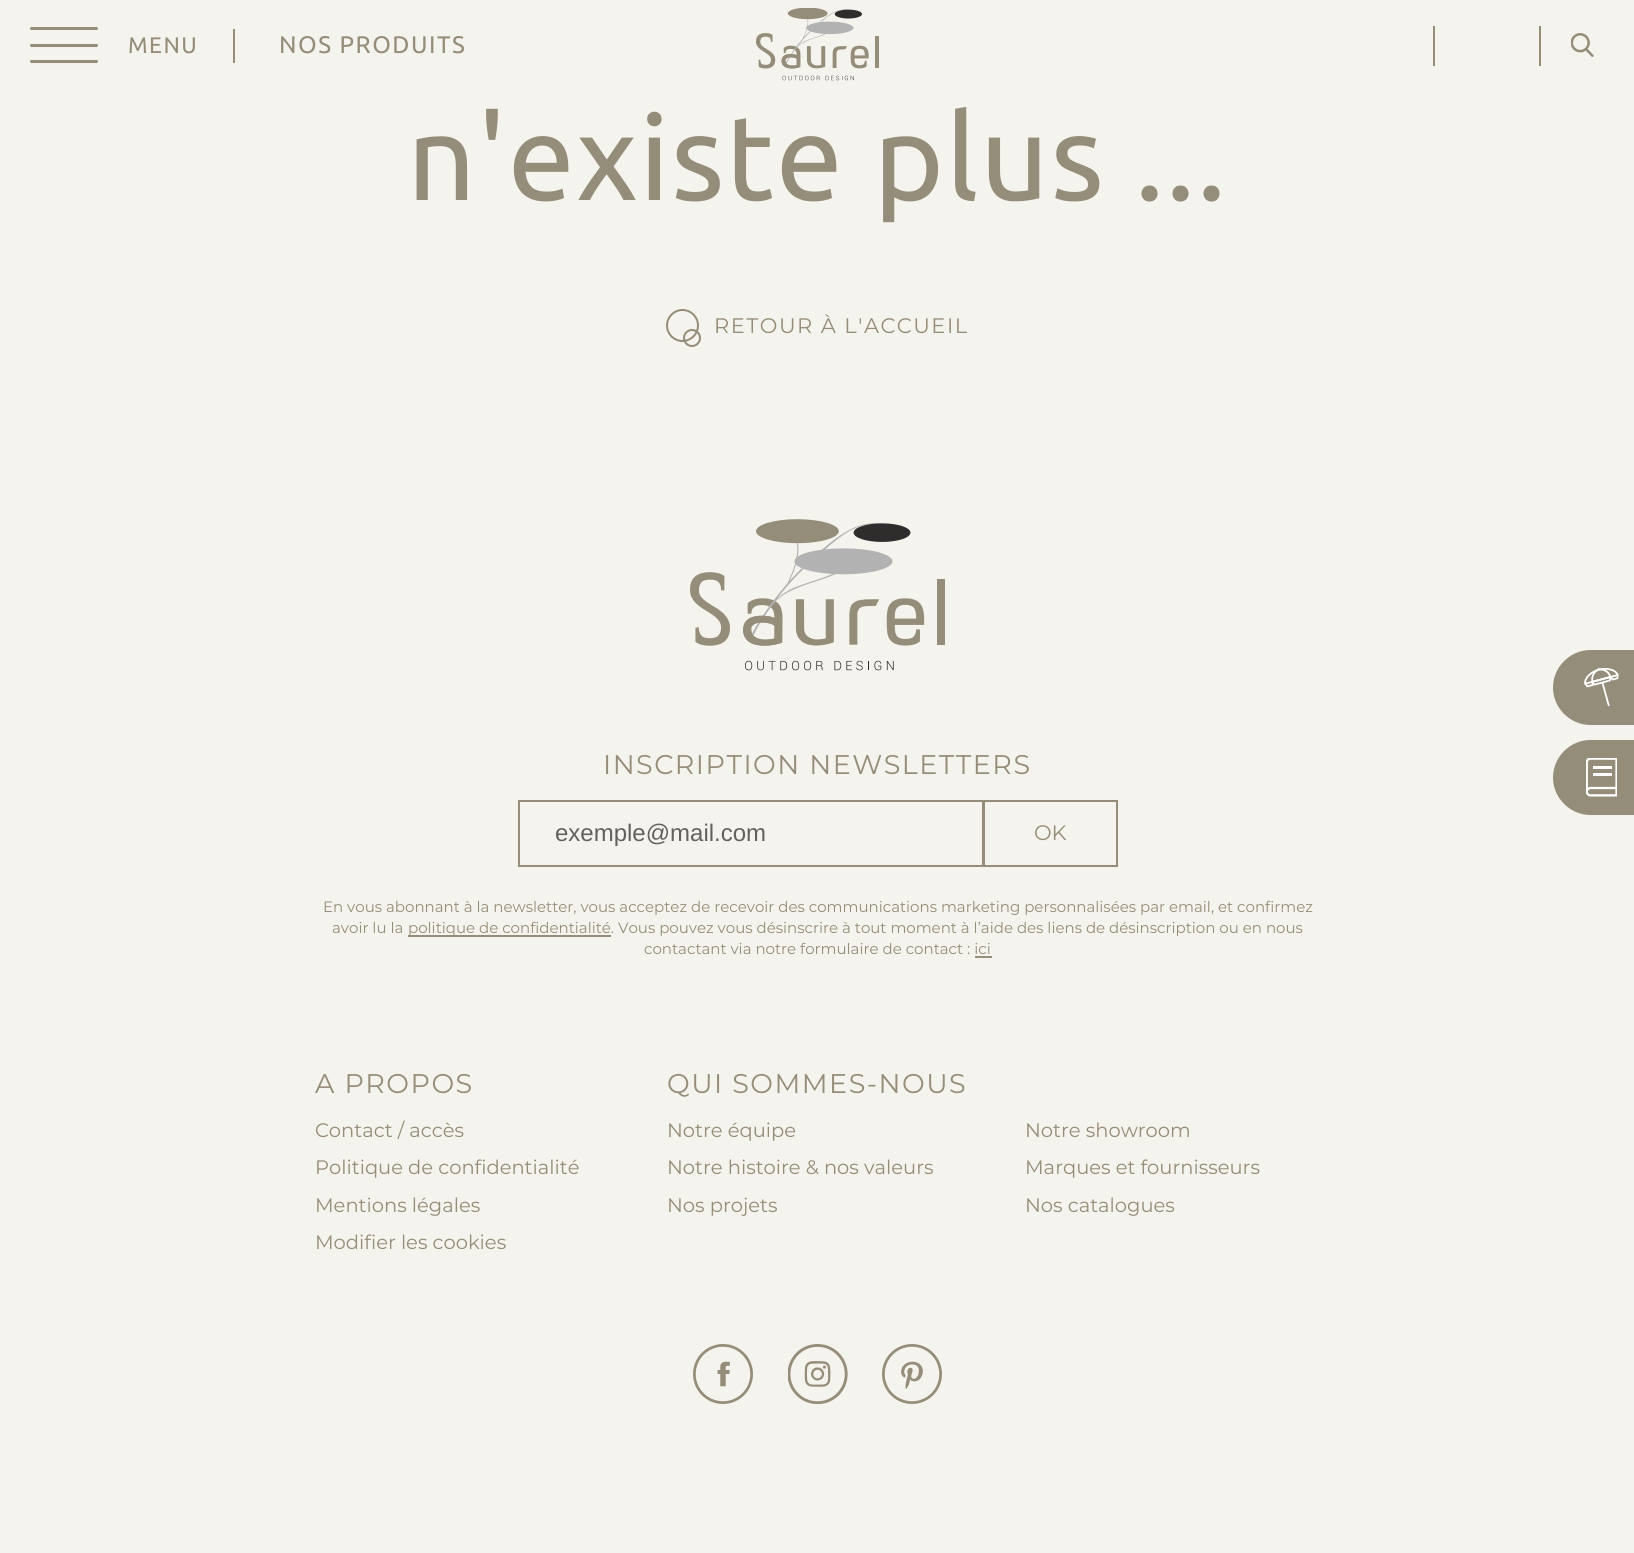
#include <cairo.h>
#include <math.h>
#include <stddef.h>


static void rgb(cairo_t *cr, int r, int g, int b)
{
	cairo_set_source_rgb(cr, r / 255.0, g / 255.0, b / 255.0);
}

static void face(cairo_t *cr, const char *family, double size, int italic, int bold)
{
	cairo_select_font_face(cr, family, italic ? CAIRO_FONT_SLANT_ITALIC : CAIRO_FONT_SLANT_NORMAL,
		bold ? CAIRO_FONT_WEIGHT_BOLD : CAIRO_FONT_WEIGHT_NORMAL);
	cairo_set_font_size(cr, size);
}

static void label(cairo_t *cr, double x, double y, const char *s)
{
	cairo_move_to(cr, x, y);
	cairo_show_text(cr, s);
}

static void tracked(cairo_t *cr, double x, double y, const char *s, double letter, double word)
{
	cairo_move_to(cr, x, y);
	while (*s) {
		char ch[5] = {0};
		int n = 0;
		do ch[n++] = *s++; while ((*s & 0xC0) == 0x80);
		cairo_show_text(cr, ch);
		cairo_rel_move_to(cr, letter + word * (*ch == ' '), 0);
	}
}

static void rect(cairo_t *cr, double x, double y, double w, double h)
{
	cairo_rectangle(cr, x, y, w, h);
	cairo_fill(cr);
}

static void rrect(cairo_t *cr, double x, double y, double w, double h, double r)
{
	cairo_new_sub_path(cr);
	cairo_arc(cr, x + w - r, y + h - r, r, 0, M_PI / 2);
	cairo_arc(cr, x + r, y + h - r, r, M_PI / 2, M_PI);
	cairo_arc(cr, x + r, y + r, r, M_PI, 1.5 * M_PI);
	cairo_arc(cr, x + w - r, y + r, r, 1.5 * M_PI, 2 * M_PI);
	cairo_close_path(cr);
}

static void image(cairo_t *cr, const char *path, double x, double y, double w, double h)
{
	cairo_surface_t *image = cairo_image_surface_create_from_png(path);
	cairo_save(cr);
	cairo_set_source_surface(cr, image, x, y);
	cairo_rectangle(cr, x, y, w, h);
	cairo_fill(cr);
	cairo_restore(cr);
	cairo_surface_destroy(image);
}

static void draw(cairo_t *cr) {
	rgb(cr, 245, 243, 237);
	cairo_paint(cr);
	rgb(cr, 148, 141, 121);
	rrect(cr, 30, 27, 68, 3, 1.5);
	cairo_fill(cr);
	rrect(cr, 30, 44, 68, 3, 1.5);
	cairo_fill(cr);
	face(cr, "Ubuntu", 22.5, 0, 0);
	tracked(cr, 128, 53, "MENU", 1.5, 0);
	rrect(cr, 30, 60, 68, 3, 1.5);
	cairo_fill(cr);
	rect(cr, 233, 29, 2, 34);
	face(cr, "Ubuntu", 24, 0, 0);
	tracked(cr, 279, 53, "NOS PRODUITS", 1.5, 0);
	image(cr, "image0.png", 756, 8, 123, 73);
	rect(cr, 1433, 26, 2, 40);
	rect(cr, 1539, 26, 2, 40);
	image(cr, "image1.png", 1571, 33, 23, 24);
	face(cr, "Ubuntu", 120, 0, 0);
	tracked(cr, 407, 200, "n'existe plus ...", 1.5, 0);
	cairo_new_path(cr);
	cairo_arc(cr, 682.5, 325.5, 15.5, 0, 2 * M_PI);
	cairo_stroke(cr);
	face(cr, "Montserrat", 21, 0, 0);
	tracked(cr, 714, 333, "RETOUR À L'ACCUEIL", 1.5, 0);
	cairo_new_path(cr);
	cairo_arc(cr, 692, 338, 8, 0, 2 * M_PI);
	cairo_stroke(cr);
	image(cr, "image2.png", 690, 519, 255, 152);
	cairo_new_path(cr);
	cairo_move_to(cr, 1590.5, 650);
	cairo_line_to(cr, 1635, 650);
	cairo_line_to(cr, 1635, 725);
	cairo_line_to(cr, 1590.5, 725);
	cairo_curve_to(cr, 1570, 725, 1553, 708, 1553, 687.5);
	cairo_curve_to(cr, 1553, 667, 1570, 650, 1590.5, 650);
	cairo_close_path(cr);
	cairo_fill(cr);
	image(cr, "image3.png", 1584, 668, 35, 39);
	cairo_new_path(cr);
	cairo_move_to(cr, 1590.5, 740);
	cairo_line_to(cr, 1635, 740);
	cairo_line_to(cr, 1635, 815);
	cairo_line_to(cr, 1590.5, 815);
	cairo_curve_to(cr, 1570, 815, 1553, 798, 1553, 777.5);
	cairo_curve_to(cr, 1553, 757, 1570, 740, 1590.5, 740);
	cairo_close_path(cr);
	cairo_fill(cr);
	image(cr, "image4.png", 1586, 758, 31, 39);
	face(cr, "Montserrat", 27, 0, 0);
	tracked(cr, 603, 774, "INSCRIPTION NEWSLETTERS", 1.5, 0);
	cairo_rectangle(cr, 519, 801, 464, 65);
	cairo_stroke(cr);
	face(cr, "Liberation Sans", 24, 0, 0);
	rgb(cr, 98, 97, 95);
	label(cr, 555, 841, "exemple@mail.com");
	cairo_rectangle(cr, 984, 801, 133, 65);
	rgb(cr, 148, 141, 121);
	cairo_stroke(cr);
	face(cr, "Montserrat", 21, 0, 0);
	label(cr, 1034, 840, "OK");
	face(cr, "Montserrat", 15, 0, 0);
	label(cr, 323, 912, "En vous abonnant à la newsletter, vous acceptez de recevoir des communications marketing personnalisées par email, et confirmez");
	label(cr, 332, 933, "avoir lu la");
	rect(cr, 408, 935, 203, 2);
	label(cr, 408, 933, "politique de confidentialité. Vous pouvez vous désinscrire à tout moment à l’aide des liens de désinscription ou en nous");
	label(cr, 644, 954, "contactant via notre formulaire de contact : ici");
	rect(cr, 975, 956, 17, 2);
	face(cr, "Montserrat", 27, 0, 0);
	tracked(cr, 315, 1093, "A PROPOS", 1.5, 0);
	face(cr, "Montserrat", 19.5, 0, 0);
	label(cr, 315, 1137, "Contact / accès");
	label(cr, 315, 1174, "Politique de confidentialité");
	label(cr, 315, 1212, "Mentions légales");
	label(cr, 315, 1249, "Modifier les cookies");
	face(cr, "Montserrat", 27, 0, 0);
	tracked(cr, 667, 1093, "QUI SOMMES-NOUS", 1.5, 0);
	face(cr, "Montserrat", 19.5, 0, 0);
	label(cr, 667, 1137, "Notre équipe");
	label(cr, 667, 1174, "Notre histoire & nos valeurs");
	label(cr, 667, 1212, "Nos projets");
	label(cr, 1025, 1137, "Notre showroom");
	label(cr, 1025, 1174, "Marques et fournisseurs");
	label(cr, 1025, 1212, "Nos catalogues");
	image(cr, "image5.png", 693, 1344, 60, 60);
	image(cr, "image6.png", 788, 1344, 60, 60);
	image(cr, "image7.png", 882, 1344, 60, 60);
}

int main(void) {
	cairo_surface_t *surface = cairo_image_surface_create(CAIRO_FORMAT_RGB24, 1634, 1553);
	cairo_t *cr = cairo_create(surface);
	cairo_font_options_t *options = cairo_font_options_create();
	cairo_font_options_set_hint_metrics(options, CAIRO_HINT_METRICS_OFF);
	cairo_font_options_set_hint_style(options, CAIRO_HINT_STYLE_NONE);
	cairo_set_font_options(cr, options);
	cairo_set_miter_limit(cr, 4);
	draw(cr);
	cairo_surface_write_to_png(surface, "render.png");
	cairo_font_options_destroy(options);
	cairo_destroy(cr);
	cairo_surface_destroy(surface);
	return 0;
}
